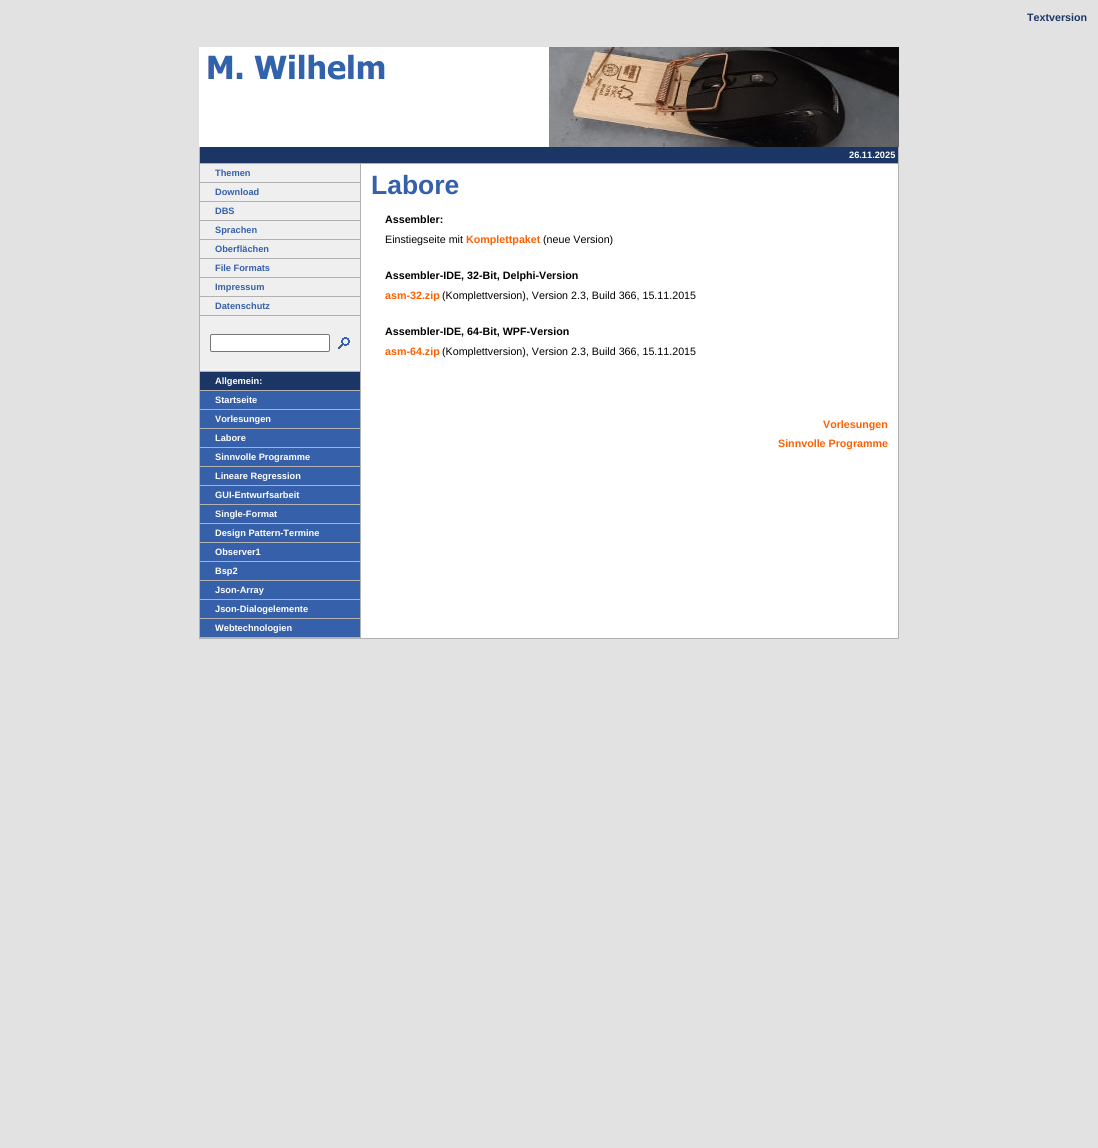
#include <cairo.h>
#include <math.h>
#include <stddef.h>


static void rgb(cairo_t *cr, int r, int g, int b)
{
	cairo_set_source_rgb(cr, r / 255.0, g / 255.0, b / 255.0);
}

static void face(cairo_t *cr, const char *family, double size, int italic, int bold)
{
	cairo_select_font_face(cr, family, italic ? CAIRO_FONT_SLANT_ITALIC : CAIRO_FONT_SLANT_NORMAL,
		bold ? CAIRO_FONT_WEIGHT_BOLD : CAIRO_FONT_WEIGHT_NORMAL);
	cairo_set_font_size(cr, size);
}

static void label(cairo_t *cr, double x, double y, const char *s)
{
	cairo_move_to(cr, x, y);
	cairo_show_text(cr, s);
}

static void rect(cairo_t *cr, double x, double y, double w, double h)
{
	cairo_rectangle(cr, x, y, w, h);
	cairo_fill(cr);
}

static void rrect(cairo_t *cr, double x, double y, double w, double h, double r)
{
	cairo_new_sub_path(cr);
	cairo_arc(cr, x + w - r, y + h - r, r, 0, M_PI / 2);
	cairo_arc(cr, x + r, y + h - r, r, M_PI / 2, M_PI);
	cairo_arc(cr, x + r, y + r, r, M_PI, 1.5 * M_PI);
	cairo_arc(cr, x + w - r, y + r, r, 1.5 * M_PI, 2 * M_PI);
	cairo_close_path(cr);
}

static void image(cairo_t *cr, const char *path, double x, double y, double w, double h)
{
	cairo_surface_t *image = cairo_image_surface_create_from_png(path);
	cairo_save(cr);
	cairo_set_source_surface(cr, image, x, y);
	cairo_rectangle(cr, x, y, w, h);
	cairo_fill(cr);
	cairo_restore(cr);
	cairo_surface_destroy(image);
}

static void draw(cairo_t *cr) {
	rgb(cr, 226, 226, 226);
	cairo_paint(cr);
	face(cr, "Liberation Sans", 10.7, 0, 1);
	rgb(cr, 27, 54, 101);
	label(cr, 1027, 21, "Textversion");
	rgb(cr, 239, 239, 239);
	rect(cr, 200, 164, 160, 207);
	image(cr, "image0.png", 199, 47, 350, 100);
	image(cr, "image1.png", 549, 47, 350, 100);
	rgb(cr, 177, 177, 177);
	rect(cr, 199, 147, 1, 16);
	rgb(cr, 27, 54, 101);
	rect(cr, 200, 147, 698, 16);
	face(cr, "Liberation Sans", 9.25, 0, 1);
	rgb(cr, 255, 255, 255);
	label(cr, 849, 158, "26.11.2025");
	rgb(cr, 177, 177, 177);
	rect(cr, 898, 147, 1, 16);
	rect(cr, 199, 163, 700, 1);
	rect(cr, 199, 164, 1, 474);
	rgb(cr, 54, 96, 170);
	label(cr, 215, 176, "Themen");
	rgb(cr, 177, 177, 177);
	rect(cr, 200, 182, 160, 1);
	rgb(cr, 54, 96, 170);
	label(cr, 215, 195, "Download");
	rgb(cr, 177, 177, 177);
	rect(cr, 200, 201, 160, 1);
	rgb(cr, 54, 96, 170);
	label(cr, 215, 214, "DBS");
	rgb(cr, 177, 177, 177);
	rect(cr, 200, 220, 160, 1);
	rgb(cr, 54, 96, 170);
	label(cr, 215, 233, "Sprachen");
	rgb(cr, 177, 177, 177);
	rect(cr, 200, 239, 160, 1);
	rgb(cr, 54, 96, 170);
	label(cr, 215, 252, "Oberflächen");
	rgb(cr, 177, 177, 177);
	rect(cr, 200, 258, 160, 1);
	rgb(cr, 54, 96, 170);
	label(cr, 215, 271, "File Formats");
	rgb(cr, 177, 177, 177);
	rect(cr, 200, 277, 160, 1);
	rgb(cr, 54, 96, 170);
	label(cr, 215, 290, "Impressum");
	rgb(cr, 177, 177, 177);
	rect(cr, 200, 296, 160, 1);
	rgb(cr, 54, 96, 170);
	label(cr, 215, 309, "Datenschutz");
	rgb(cr, 177, 177, 177);
	rect(cr, 200, 315, 160, 1);
	rgb(cr, 255, 255, 255);
	rrect(cr, 210.5, 334.5, 119, 17, 1.5);
	cairo_fill_preserve(cr);
	rgb(cr, 118, 118, 118);
	cairo_set_line_width(cr, 1);
	cairo_stroke(cr);
	image(cr, "image2.png", 338, 337, 12, 12);
	rgb(cr, 177, 177, 177);
	rect(cr, 200, 371, 160, 1);
	rgb(cr, 27, 54, 101);
	rect(cr, 200, 372, 160, 18);
	rgb(cr, 255, 255, 255);
	label(cr, 215, 384, "Allgemein:");
	rgb(cr, 177, 177, 177);
	rect(cr, 200, 390, 160, 1);
	rgb(cr, 54, 96, 170);
	rect(cr, 200, 391, 160, 18);
	rgb(cr, 255, 255, 255);
	label(cr, 215, 403, "Startseite");
	rgb(cr, 177, 177, 177);
	rect(cr, 200, 409, 160, 1);
	rgb(cr, 54, 96, 170);
	rect(cr, 200, 410, 160, 18);
	rgb(cr, 255, 255, 255);
	label(cr, 215, 422, "Vorlesungen");
	rgb(cr, 177, 177, 177);
	rect(cr, 200, 428, 160, 1);
	rgb(cr, 54, 96, 170);
	rect(cr, 200, 429, 160, 18);
	rgb(cr, 255, 255, 255);
	label(cr, 215, 441, "Labore");
	rgb(cr, 177, 177, 177);
	rect(cr, 200, 447, 160, 1);
	rgb(cr, 54, 96, 170);
	rect(cr, 200, 448, 160, 18);
	rgb(cr, 255, 255, 255);
	label(cr, 215, 460, "Sinnvolle Programme");
	rgb(cr, 177, 177, 177);
	rect(cr, 200, 466, 160, 1);
	rgb(cr, 54, 96, 170);
	rect(cr, 200, 467, 160, 18);
	rgb(cr, 255, 255, 255);
	label(cr, 215, 479, "Lineare Regression");
	rgb(cr, 177, 177, 177);
	rect(cr, 200, 485, 160, 1);
	rgb(cr, 54, 96, 170);
	rect(cr, 200, 486, 160, 18);
	rgb(cr, 255, 255, 255);
	label(cr, 215, 498, "GUI-Entwurfsarbeit");
	rgb(cr, 177, 177, 177);
	rect(cr, 200, 504, 160, 1);
	rgb(cr, 54, 96, 170);
	rect(cr, 200, 505, 160, 18);
	rgb(cr, 255, 255, 255);
	label(cr, 215, 517, "Single-Format");
	rgb(cr, 177, 177, 177);
	rect(cr, 200, 523, 160, 1);
	rgb(cr, 54, 96, 170);
	rect(cr, 200, 524, 160, 18);
	rgb(cr, 255, 255, 255);
	label(cr, 215, 536, "Design Pattern-Termine");
	rgb(cr, 177, 177, 177);
	rect(cr, 200, 542, 160, 1);
	rgb(cr, 54, 96, 170);
	rect(cr, 200, 543, 160, 18);
	rgb(cr, 255, 255, 255);
	label(cr, 215, 555, "Observer1");
	rgb(cr, 177, 177, 177);
	rect(cr, 200, 561, 160, 1);
	rgb(cr, 54, 96, 170);
	rect(cr, 200, 562, 160, 18);
	rgb(cr, 255, 255, 255);
	label(cr, 215, 574, "Bsp2");
	rgb(cr, 177, 177, 177);
	rect(cr, 200, 580, 160, 1);
	rgb(cr, 54, 96, 170);
	rect(cr, 200, 581, 160, 18);
	rgb(cr, 255, 255, 255);
	label(cr, 215, 593, "Json-Array");
	rgb(cr, 177, 177, 177);
	rect(cr, 200, 599, 160, 1);
	rgb(cr, 54, 96, 170);
	rect(cr, 200, 600, 160, 18);
	rgb(cr, 255, 255, 255);
	label(cr, 215, 612, "Json-Dialogelemente");
	rgb(cr, 177, 177, 177);
	rect(cr, 200, 618, 160, 1);
	rgb(cr, 54, 96, 170);
	rect(cr, 200, 619, 160, 18);
	rgb(cr, 255, 255, 255);
	label(cr, 215, 631, "Webtechnologien");
	rgb(cr, 177, 177, 177);
	rect(cr, 200, 637, 160, 1);
	rect(cr, 360, 164, 1, 474);
	rgb(cr, 255, 255, 255);
	rect(cr, 361, 164, 537, 474);
	face(cr, "Liberation Sans", 26.5, 0, 1);
	rgb(cr, 54, 96, 170);
	label(cr, 371, 194, "Labore");
	face(cr, "Liberation Sans", 10.7, 0, 1);
	rgb(cr, 0, 0, 0);
	label(cr, 385, 223, "Assembler:");
	face(cr, "Liberation Sans", 10.7, 0, 0);
	label(cr, 385, 243, "Einstiegseite mit");
	face(cr, "Liberation Sans", 10.7, 0, 1);
	rgb(cr, 253, 96, 0);
	label(cr, 466, 243, "Komplettpaket");
	face(cr, "Liberation Sans", 10.7, 0, 0);
	rgb(cr, 0, 0, 0);
	label(cr, 543, 243, "(neue Version)");
	face(cr, "Liberation Sans", 10.7, 0, 1);
	label(cr, 385, 279, "Assembler-IDE, 32-Bit, Delphi-Version");
	rgb(cr, 253, 96, 0);
	label(cr, 385, 299, "asm-32.zip");
	face(cr, "Liberation Sans", 10.7, 0, 0);
	rgb(cr, 0, 0, 0);
	label(cr, 442, 299, "(Komplettversion), Version 2.3, Build 366, 15.11.2015");
	face(cr, "Liberation Sans", 10.7, 0, 1);
	label(cr, 385, 335, "Assembler-IDE, 64-Bit, WPF-Version");
	rgb(cr, 253, 96, 0);
	label(cr, 385, 355, "asm-64.zip");
	face(cr, "Liberation Sans", 10.7, 0, 0);
	rgb(cr, 0, 0, 0);
	label(cr, 442, 355, "(Komplettversion), Version 2.3, Build 366, 15.11.2015");
	face(cr, "Liberation Sans", 10.7, 0, 1);
	rgb(cr, 253, 96, 0);
	label(cr, 823, 428, "Vorlesungen");
	label(cr, 778, 447, "Sinnvolle Programme");
	rgb(cr, 177, 177, 177);
	rect(cr, 898, 164, 1, 474);
	rect(cr, 199, 638, 700, 1);
}

int main(void) {
	cairo_surface_t *surface = cairo_image_surface_create(CAIRO_FORMAT_RGB24, 1098, 1148);
	cairo_t *cr = cairo_create(surface);
	cairo_font_options_t *options = cairo_font_options_create();
	cairo_font_options_set_hint_metrics(options, CAIRO_HINT_METRICS_OFF);
	cairo_font_options_set_hint_style(options, CAIRO_HINT_STYLE_NONE);
	cairo_set_font_options(cr, options);
	cairo_set_miter_limit(cr, 4);
	draw(cr);
	cairo_surface_write_to_png(surface, "render.png");
	cairo_font_options_destroy(options);
	cairo_destroy(cr);
	cairo_surface_destroy(surface);
	return 0;
}
